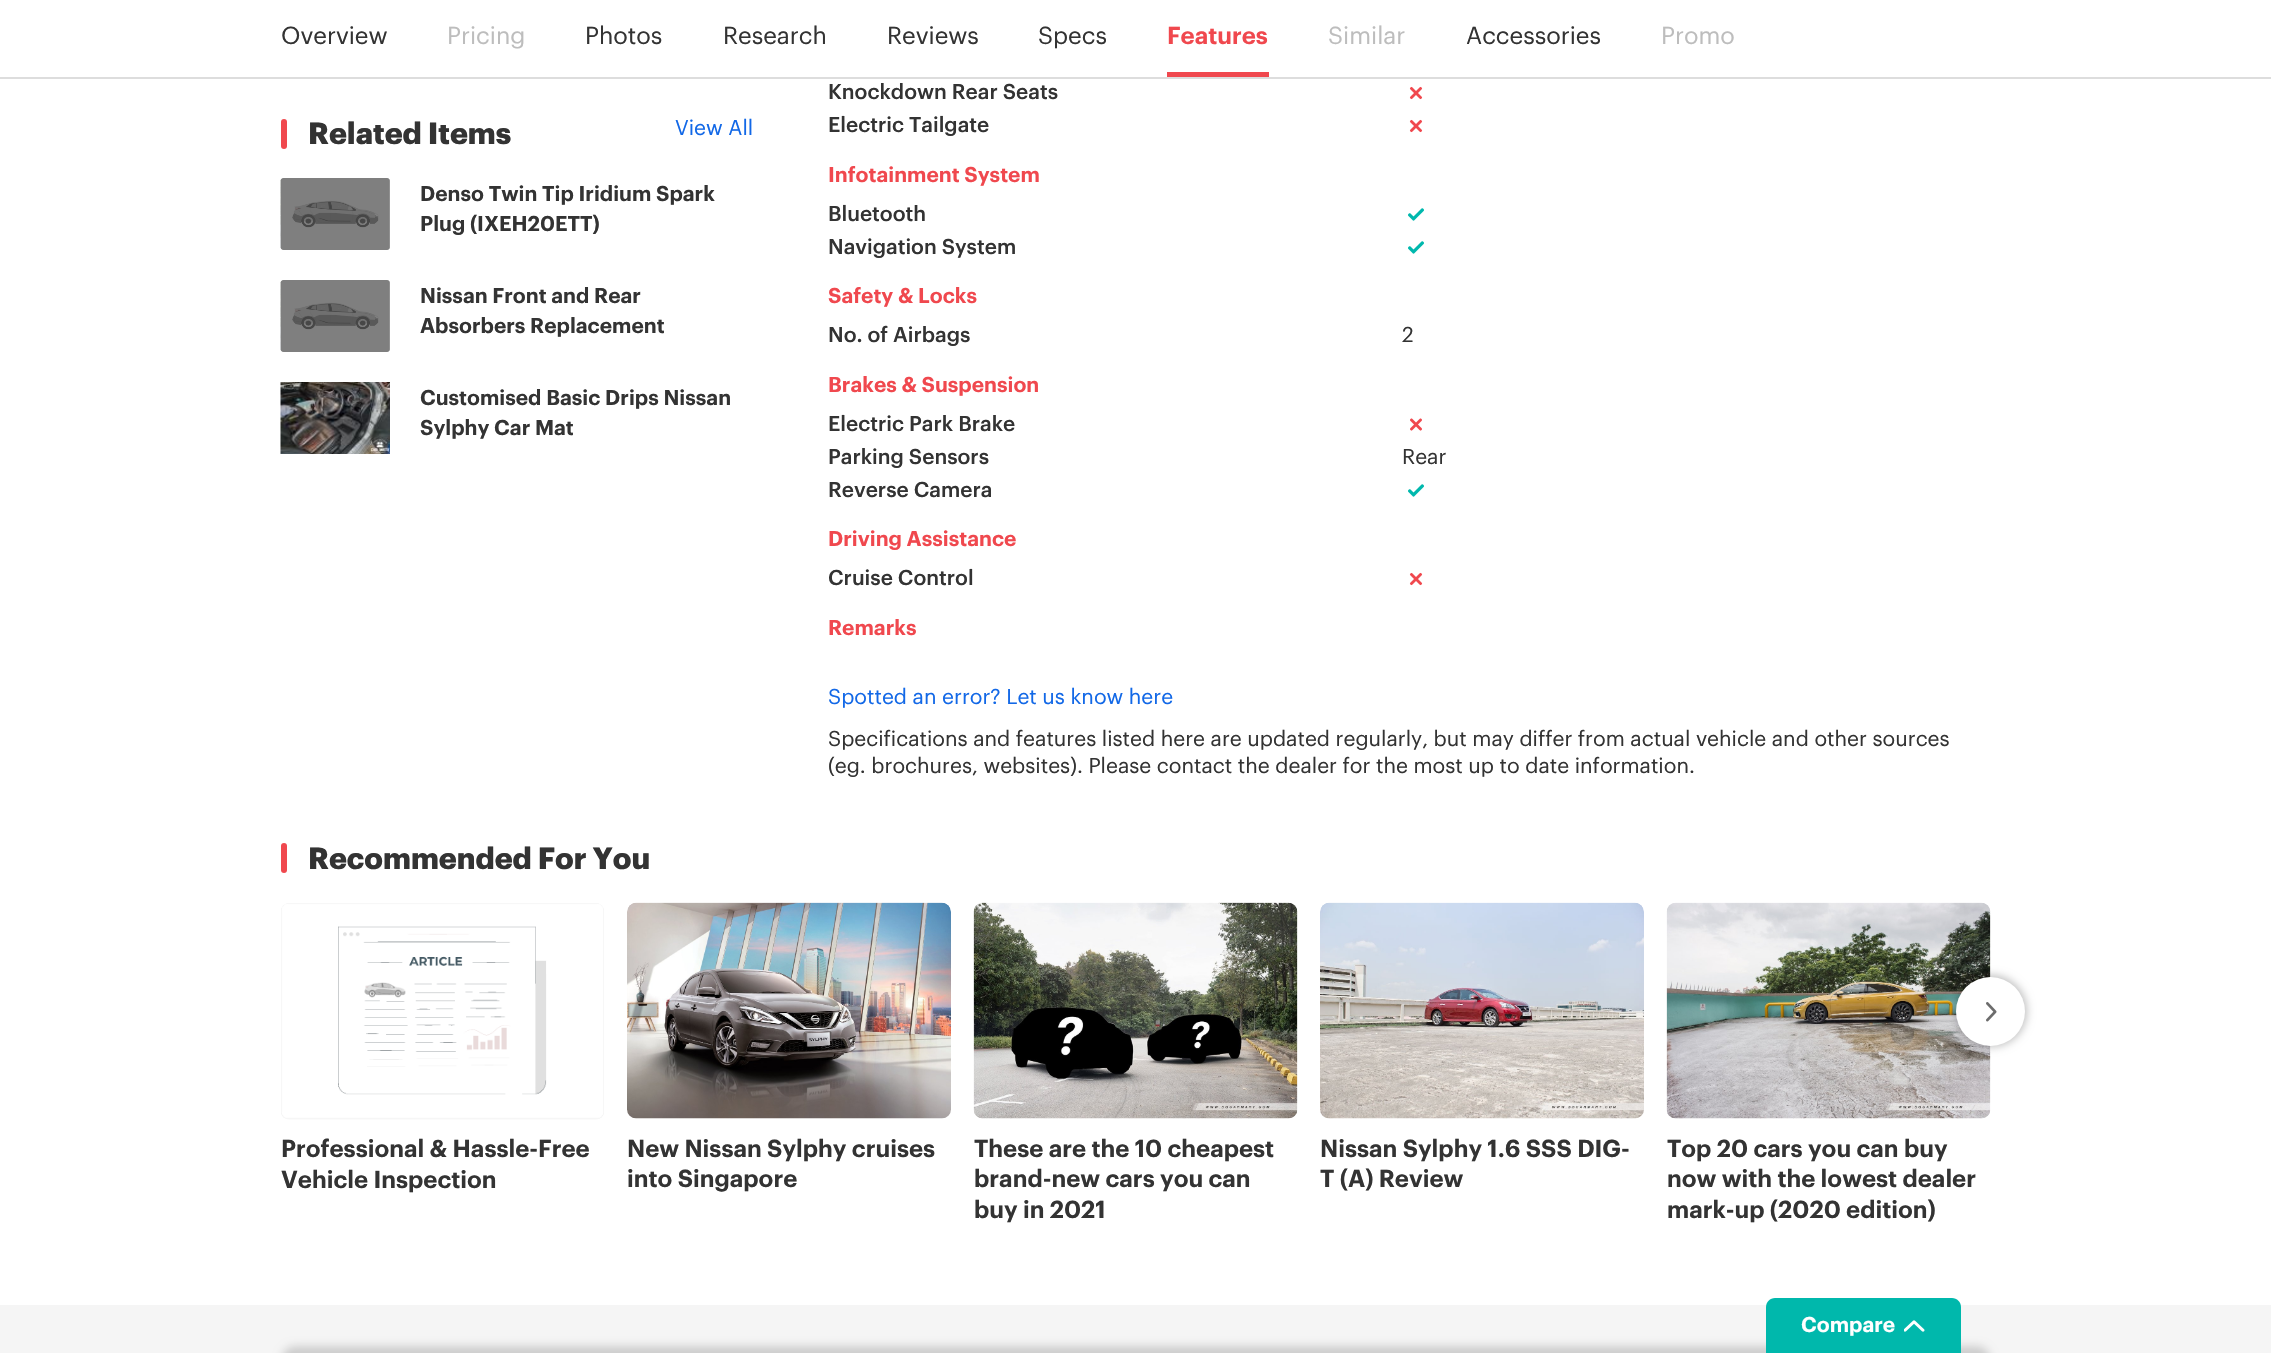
#include "include/core/SkBlurTypes.h"
#include "include/core/SkCanvas.h"
#include "include/core/SkData.h"
#include "include/core/SkFont.h"
#include "include/core/SkFontMgr.h"
#include "include/core/SkImage.h"
#include "include/core/SkMaskFilter.h"
#include "include/core/SkPaint.h"
#include "include/core/SkPathBuilder.h"
#include "include/core/SkTextBlob.h"
#include "include/effects/SkDashPathEffect.h"
#include "include/effects/SkGradientShader.h"
#include "include/utils/SkParsePath.h"

extern sk_sp<SkFontMgr> fontMgr;

static SkFont font(const char* family, int weight, float size, bool italic = false) {
    SkFontStyle style(weight, SkFontStyle::kNormal_Width,
        italic ? SkFontStyle::kItalic_Slant : SkFontStyle::kUpright_Slant);
    SkFont result(fontMgr->matchFamilyStyle(family, style), size);
    result.setSubpixel(true);
    return result;
}

static void drawLabel(SkCanvas* canvas, const char* s, float x, float y, const SkFont& font, SkColor color) {
    SkPaint ink(SkColor4f::FromColor(color));
    ink.setAntiAlias(true);
    canvas->drawString(s, x, y, font, ink);
}

static void fillRect(SkCanvas* canvas, float x, float y, float w, float h, SkColor color) {
    SkPaint ink(SkColor4f::FromColor(color));
    ink.setAntiAlias(true);
    canvas->drawRect(SkRect::MakeXYWH(x, y, w, h), ink);
}

static void fillRRect(SkCanvas* canvas, float x, float y, float w, float h, float radius, SkColor color) {
    SkPaint ink(SkColor4f::FromColor(color));
    ink.setAntiAlias(true);
    canvas->drawRoundRect(SkRect::MakeXYWH(x, y, w, h), radius, radius, ink);
}

static void drawPhoto(SkCanvas* canvas, const char* path, float x, float y, float w, float h) {
    auto image = SkImages::DeferredFromEncodedData(SkData::MakeFromFileName(path));
    canvas->drawImageRect(image, SkRect::MakeXYWH(x, y, w, h), SkSamplingOptions());
}

static SkPath parsePath(const char* data, bool evenOdd = false) {
    SkPath result = *SkParsePath::FromSVGString(data);
    if (evenOdd) result.setFillType(SkPathFillType::kEvenOdd);
    return result;
}

void draw(SkCanvas* canvas) {
    SkPaint paint;
    paint.setAntiAlias(true);
    canvas->clear(0xFFFFFFFF);
    fillRect(canvas, 0, 77, 2271, 2, 0xFFDDDDDD);
    SkFont font1 = font("Graphik", 400, 24);
    drawLabel(canvas, "Overview", 281, 44, font1, 0xFF333333);
    drawLabel(canvas, "Pricing", 447, 44, font1, 0xFFBDBDBD);
    drawLabel(canvas, "Photos", 585, 44, font1, 0xFF333333);
    drawLabel(canvas, "Research", 723, 44, font1, 0xFF333333);
    drawLabel(canvas, "Reviews", 887, 44, font1, 0xFF333333);
    drawLabel(canvas, "Specs", 1038, 44, font1, 0xFF333333);
    fillRect(canvas, 1167, 72, 102, 5, 0xFFF0484E);
    SkFont font2 = font("Graphik", 600, 24);
    drawLabel(canvas, "Features", 1167, 44, font2, 0xFFF0484E);
    drawLabel(canvas, "Similar", 1328, 44, font1, 0xFFBDBDBD);
    drawLabel(canvas, "Accessories", 1466, 44, font1, 0xFF333333);
    drawLabel(canvas, "Promo", 1661, 44, font1, 0xFFBDBDBD);
    fillRRect(canvas, 281, 119, 6, 30, 3, 0xFFF0484E);
    SkFont font3 = font("Graphik", 700, 30);
    drawLabel(canvas, "Related Items", 308, 144, font3, 0xFF333333);
    SkFont font4 = font("Graphik", 400, 21);
    drawLabel(canvas, "View All", 675, 135, font4, 0xFF1268E7);
    drawPhoto(canvas, "assets/img1.png", 280, 178, 110, 72);
    SkFont font5 = font("Graphik", 600, 21);
    drawLabel(canvas, "Denso Twin Tip Iridium Spark", 420, 201, font5, 0xFF333333);
    drawLabel(canvas, "Plug (IXEH20ETT)", 420, 231, font5, 0xFF333333);
    drawPhoto(canvas, "assets/img1.png", 280, 280, 110, 72);
    drawLabel(canvas, "Nissan Front and Rear", 420, 303, font5, 0xFF333333);
    drawLabel(canvas, "Absorbers Replacement", 420, 333, font5, 0xFF333333);
    drawPhoto(canvas, "assets/img2.png", 280, 382, 110, 72);
    drawLabel(canvas, "Customised Basic Drips Nissan", 420, 405, font5, 0xFF333333);
    drawLabel(canvas, "Sylphy Car Mat", 420, 435, font5, 0xFF333333);
    SkFont font6 = font("Graphik", 500, 21);
    drawLabel(canvas, "Knockdown Rear Seats", 828, 99, font6, 0xFF333333);
    drawPhoto(canvas, "assets/img3.png", 1409, 86, 14, 14);
    drawLabel(canvas, "Electric Tailgate", 828, 132, font6, 0xFF333333);
    drawPhoto(canvas, "assets/img3.png", 1409, 119, 14, 14);
    drawLabel(canvas, "Infotainment System", 828, 182, font5, 0xFFF0484E);
    drawLabel(canvas, "Bluetooth", 828, 221, font6, 0xFF333333);
    drawPhoto(canvas, "assets/img4.png", 1408, 208, 16, 13);
    drawLabel(canvas, "Navigation System", 828, 254, font6, 0xFF333333);
    drawPhoto(canvas, "assets/img4.png", 1408, 241, 16, 13);
    drawLabel(canvas, "Safety & Locks", 828, 303, font5, 0xFFF0484E);
    drawLabel(canvas, "No. of Airbags", 828, 342, font6, 0xFF333333);
    drawLabel(canvas, "2", 1402, 342, font4, 0xFF333333);
    drawLabel(canvas, "Brakes & Suspension", 828, 392, font5, 0xFFF0484E);
    drawLabel(canvas, "Electric Park Brake", 828, 431, font6, 0xFF333333);
    drawPhoto(canvas, "assets/img5.png", 1410, 418, 12, 13);
    drawLabel(canvas, "Parking Sensors", 828, 464, font6, 0xFF333333);
    drawLabel(canvas, "Rear", 1402, 464, font4, 0xFF333333);
    drawLabel(canvas, "Reverse Camera", 828, 497, font6, 0xFF333333);
    drawPhoto(canvas, "assets/img4.png", 1408, 484, 16, 13);
    drawLabel(canvas, "Driving Assistance", 828, 546, font5, 0xFFF0484E);
    drawLabel(canvas, "Cruise Control", 828, 585, font6, 0xFF333333);
    drawPhoto(canvas, "assets/img3.png", 1409, 572, 14, 14);
    drawLabel(canvas, "Remarks", 828, 635, font5, 0xFFF0484E);
    drawLabel(canvas, "Spotted an error? Let us know here", 828, 704, font4, 0xFF1268E7);
    drawLabel(canvas, "Specifications and features listed here are updated regularly, but may differ from actual vehicle and other sources", 828, 746, font4, 0xFF333333);
    drawLabel(canvas, "(eg. brochures, websites). Please contact the dealer for the most up to date information.", 828, 773, font4, 0xFF333333);
    fillRect(canvas, 0, 1305, 2271, 48, 0xFFF5F5F5);
    paint.setColor(0x29000000);
    paint.setMaskFilter(SkMaskFilter::MakeBlur(kNormal_SkBlurStyle, 4.5f));
    canvas->drawRoundRect(SkRect::MakeXYWH(281, 1346, 1710, 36), 15, 15, paint);
    paint.setMaskFilter(nullptr);
    paint.setColor(0xFF00B8AC);
    canvas->drawPath(parsePath("M1775 1298H1952C1957 1298 1961 1302 1961 1307V1353H1766V1307C1766 1302 1770 1298 1775 1298Z"), paint);
    drawLabel(canvas, "Compare", 1801, 1332, font5, 0xFFFFFFFF);
    drawPhoto(canvas, "assets/img6.png", 1904, 1320, 21, 12);
    fillRRect(canvas, 281, 843, 6, 30, 3, 0xFFF0484E);
    drawLabel(canvas, "Recommended For You", 308, 869, font3, 0xFF333333);
    drawPhoto(canvas, "assets/img12.png", 1666, 902, 325, 217);
    paint.setColor(0x40000000);
    paint.setMaskFilter(SkMaskFilter::MakeBlur(kNormal_SkBlurStyle, 4.5f));
    canvas->drawRoundRect(SkRect::MakeXYWH(1955, 975, 72, 72), 36, 36, paint);
    paint.setMaskFilter(nullptr);
    paint.setColor(0xFFFFFFFF);
    canvas->drawCircle(1990.5f, 1011.5f, 34.5f, paint);
    drawPhoto(canvas, "assets/img7.png", 1986, 1002, 11, 20);
    drawPhoto(canvas, "assets/img8.png", 281, 903, 323, 217);
    drawLabel(canvas, "Professional & Hassle-Free", 281, 1157, font2, 0xFF333333);
    drawLabel(canvas, "Vehicle Inspection", 281, 1188, font2, 0xFF333333);
    drawPhoto(canvas, "assets/img9.png", 627, 902, 324, 217);
    drawLabel(canvas, "New Nissan Sylphy cruises", 627, 1157, font2, 0xFF333333);
    drawLabel(canvas, "into Singapore", 627, 1187, font2, 0xFF333333);
    drawPhoto(canvas, "assets/img10.png", 973, 902, 325, 217);
    drawLabel(canvas, "These are the 10 cheapest", 974, 1157, font2, 0xFF333333);
    drawLabel(canvas, "brand-new cars you can", 974, 1187, font2, 0xFF333333);
    drawLabel(canvas, "buy in 2021", 974, 1218, font2, 0xFF333333);
    drawPhoto(canvas, "assets/img11.png", 1320, 902, 324, 217);
    drawLabel(canvas, "Nissan Sylphy 1.6 SSS DIG-", 1320, 1157, font2, 0xFF333333);
    drawLabel(canvas, "T (A) Review", 1320, 1187, font2, 0xFF333333);
    drawLabel(canvas, "Top 20 cars you can buy", 1667, 1157, font2, 0xFF333333);
    drawLabel(canvas, "now with the lowest dealer", 1667, 1187, font2, 0xFF333333);
    drawLabel(canvas, "mark-up (2020 edition)", 1667, 1218, font2, 0xFF333333);
}
